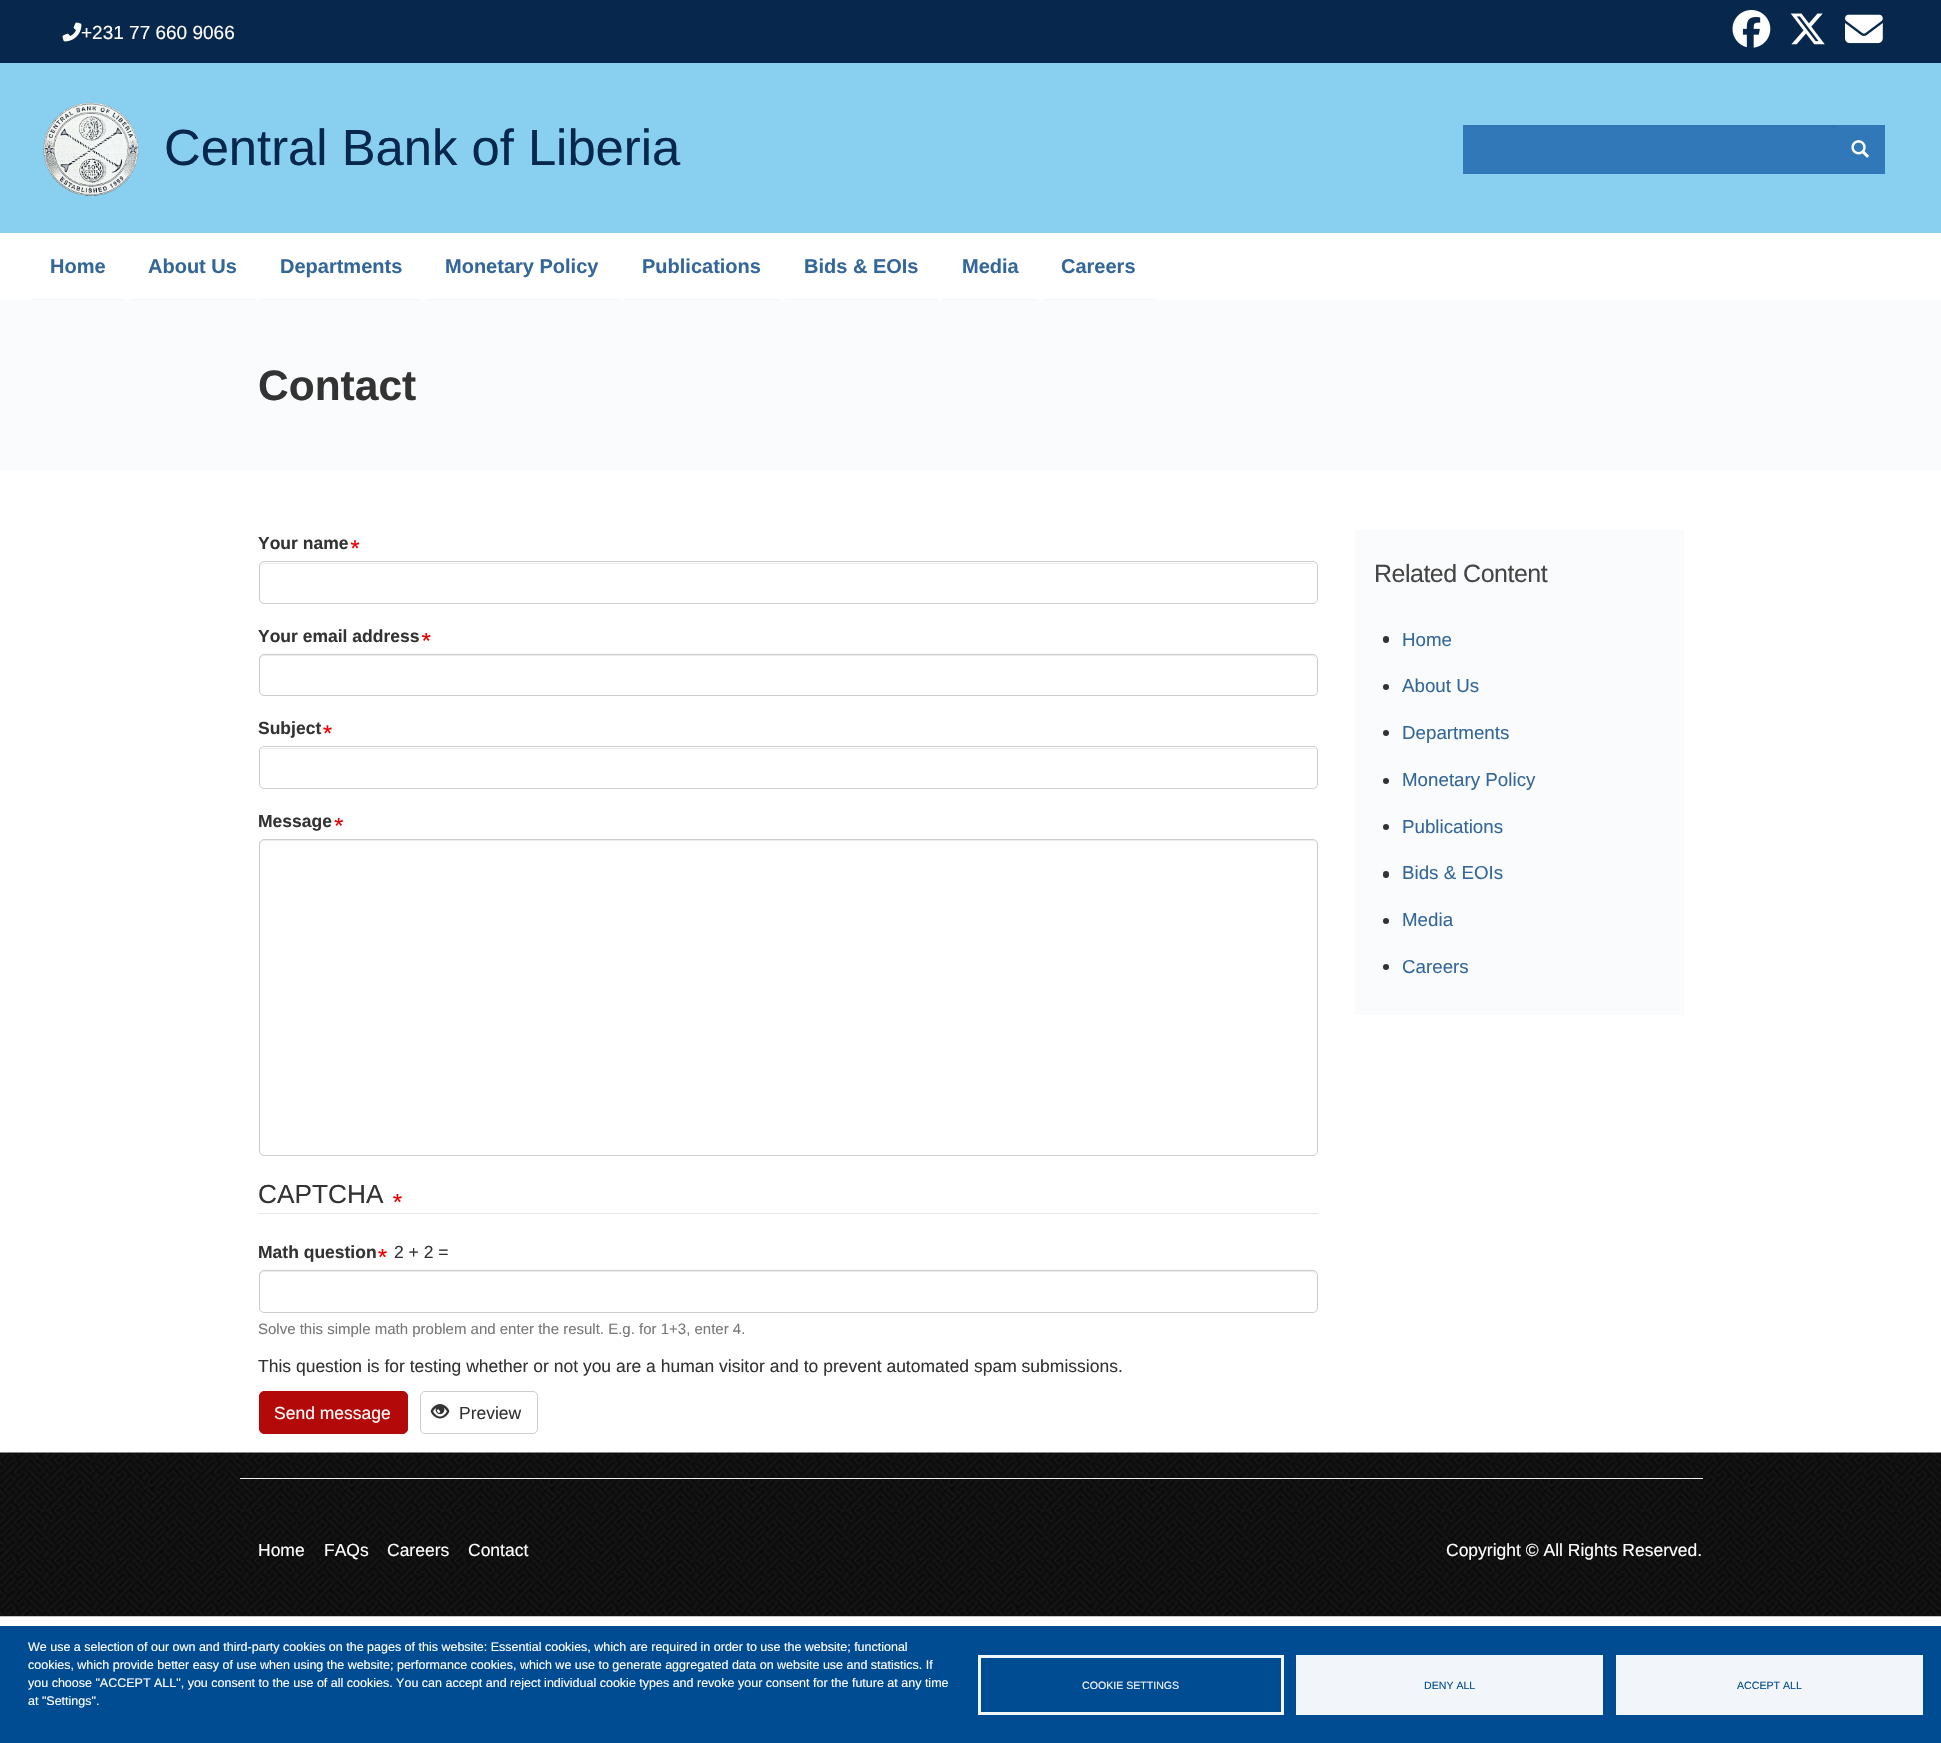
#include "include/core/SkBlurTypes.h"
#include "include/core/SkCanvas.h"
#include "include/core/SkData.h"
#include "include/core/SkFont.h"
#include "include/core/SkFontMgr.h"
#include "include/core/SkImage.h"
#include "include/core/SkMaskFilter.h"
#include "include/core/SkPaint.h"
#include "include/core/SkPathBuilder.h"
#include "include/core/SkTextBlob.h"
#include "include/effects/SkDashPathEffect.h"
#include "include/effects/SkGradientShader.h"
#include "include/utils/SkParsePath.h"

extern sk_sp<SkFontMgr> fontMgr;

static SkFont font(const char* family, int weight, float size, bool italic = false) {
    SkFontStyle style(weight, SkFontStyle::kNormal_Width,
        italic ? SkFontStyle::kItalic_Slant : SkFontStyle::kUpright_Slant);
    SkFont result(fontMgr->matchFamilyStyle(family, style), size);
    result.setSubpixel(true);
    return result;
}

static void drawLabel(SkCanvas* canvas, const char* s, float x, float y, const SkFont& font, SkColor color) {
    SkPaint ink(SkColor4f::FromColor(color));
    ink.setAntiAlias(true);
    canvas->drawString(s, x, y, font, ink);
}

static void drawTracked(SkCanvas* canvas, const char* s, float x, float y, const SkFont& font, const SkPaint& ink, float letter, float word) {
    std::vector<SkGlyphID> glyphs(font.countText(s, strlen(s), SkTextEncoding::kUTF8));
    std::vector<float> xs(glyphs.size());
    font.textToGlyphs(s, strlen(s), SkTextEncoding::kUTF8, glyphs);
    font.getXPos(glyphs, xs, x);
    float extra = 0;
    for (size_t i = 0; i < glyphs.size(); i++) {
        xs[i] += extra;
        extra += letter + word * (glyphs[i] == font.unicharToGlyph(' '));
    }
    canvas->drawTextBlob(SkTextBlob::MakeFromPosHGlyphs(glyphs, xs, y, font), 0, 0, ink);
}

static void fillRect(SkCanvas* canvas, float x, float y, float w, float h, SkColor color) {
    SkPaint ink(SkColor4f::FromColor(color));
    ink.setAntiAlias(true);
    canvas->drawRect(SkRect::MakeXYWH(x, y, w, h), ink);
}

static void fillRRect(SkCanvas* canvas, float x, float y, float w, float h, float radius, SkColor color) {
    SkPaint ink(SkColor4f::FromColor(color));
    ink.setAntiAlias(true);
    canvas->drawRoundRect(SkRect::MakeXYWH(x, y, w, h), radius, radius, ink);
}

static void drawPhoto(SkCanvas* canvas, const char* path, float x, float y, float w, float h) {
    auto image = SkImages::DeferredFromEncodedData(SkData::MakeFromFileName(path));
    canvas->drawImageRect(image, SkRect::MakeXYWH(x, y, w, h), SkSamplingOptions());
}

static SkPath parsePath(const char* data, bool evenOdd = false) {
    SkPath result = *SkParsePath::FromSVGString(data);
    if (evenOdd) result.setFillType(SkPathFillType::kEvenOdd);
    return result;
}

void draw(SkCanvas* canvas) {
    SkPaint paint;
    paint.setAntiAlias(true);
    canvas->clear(0xFFFFFFFF);
    fillRect(canvas, 0, 0, 1941, 63, 0xFF08274C);
    drawPhoto(canvas, "assets/img1.png", 62, 22, 20, 20);
    SkFont font1 = font("Liberation Sans", 400, 19);
    drawLabel(canvas, "+231 77 660 9066", 81, 39, font1, 0xFFFFFFFF);
    drawPhoto(canvas, "assets/img2.png", 1732, 10, 39, 38);
    drawPhoto(canvas, "assets/img3.png", 1790, 13, 35, 32);
    drawPhoto(canvas, "assets/img4.png", 1845, 14, 38, 30);
    fillRect(canvas, 0, 63, 1941, 170, 0xFF89CFF0);
    drawPhoto(canvas, "assets/img5.png", 43, 102, 96, 94);
    SkFont font2 = font("Liberation Sans", 400, 50.75f);
    drawLabel(canvas, "Central Bank of Liberia", 164, 165, font2, 0xFF08274C);
    fillRect(canvas, 1463, 125, 422, 49, 0xFF3078B8);
    fillRect(canvas, 1464, 126, 371, 1, 0xFF2C6FAA);
    drawPhoto(canvas, "assets/img6.png", 1851, 140, 18, 18);
    fillRect(canvas, 31, 299, 94, 1, 0xFFF4F4FC);
    SkFont font3 = font("Liberation Sans", 700, 20);
    drawLabel(canvas, "Home", 50, 273, font3, 0xFF336699);
    fillRect(canvas, 130, 299, 126, 1, 0xFFF4F4FC);
    drawLabel(canvas, "About Us", 148, 273, font3, 0xFF336699);
    fillRect(canvas, 261, 299, 160, 1, 0xFFF4F4FC);
    drawLabel(canvas, "Departments", 280, 273, font3, 0xFF336699);
    fillRect(canvas, 426, 299, 193, 1, 0xFFF4F4FC);
    drawLabel(canvas, "Monetary Policy", 445, 273, font3, 0xFF336699);
    fillRect(canvas, 624, 299, 156, 1, 0xFFF4F4FC);
    drawLabel(canvas, "Publications", 642, 273, font3, 0xFF336699);
    fillRect(canvas, 785, 299, 153, 1, 0xFFF4F4FC);
    drawLabel(canvas, "Bids & EOIs", 804, 273, font3, 0xFF336699);
    fillRect(canvas, 943, 299, 95, 1, 0xFFF4F4FC);
    drawLabel(canvas, "Media", 962, 273, font3, 0xFF336699);
    fillRect(canvas, 1043, 299, 112, 1, 0xFFF4F4FC);
    drawLabel(canvas, "Careers", 1061, 273, font3, 0xFF336699);
    fillRect(canvas, 0, 300, 1941, 170, 0xFFFAFBFC);
    SkFont font4 = font("Liberation Sans", 700, 42.5f);
    drawLabel(canvas, "Contact", 258, 400, font4, 0xFF333333);
    SkFont font5 = font("Liberation Sans", 700, 17.5f);
    drawLabel(canvas, "Your name", 258, 549, font5, 0xFF333333);
    drawPhoto(canvas, "assets/img7.png", 350, 540, 10, 9);
    paint.setColor(0xFFECECEC);
    canvas->drawPath(parsePath("M264 564H1312C1315 564 1316 565 1316 568C1316 565 1315 563 1312 563H264C261 563 260 565 260 568C260 565 262 564 264 564Z"), paint);
    paint.setStroke(true);
    paint.setStrokeWidth(1);
    paint.setColor(0xFFCCCCCC);
    canvas->drawRoundRect(SkRect::MakeXYWH(259.5f, 561.5f, 1058, 42), 4.5f, 4.5f, paint);
    drawLabel(canvas, "Your email address", 258, 642, font5, 0xFF333333);
    drawPhoto(canvas, "assets/img8.png", 421, 633, 10, 8);
    paint.setStroke(false);
    paint.setColor(0xFFECECEC);
    canvas->drawPath(parsePath("M264 656H1312C1315 656 1316 658 1316 660C1316 657 1315 655 1312 655H264C261 655 260 657 260 660C260 658 262 656 264 656Z"), paint);
    paint.setStroke(true);
    paint.setColor(0xFFCCCCCC);
    canvas->drawRoundRect(SkRect::MakeXYWH(259.5f, 654.5f, 1058, 41), 4.5f, 4.5f, paint);
    drawLabel(canvas, "Subject", 258, 734, font5, 0xFF333333);
    drawPhoto(canvas, "assets/img9.png", 323, 725, 9, 9);
    paint.setStroke(false);
    paint.setColor(0xFFECECEC);
    canvas->drawPath(parsePath("M264 749H1312C1314 749 1315 749 1316 750C1315 749 1314 748 1312 748H264C262 748 260 750 260 752C260 750 262 749 264 749Z"), paint);
    paint.setStroke(true);
    paint.setColor(0xFFCCCCCC);
    canvas->drawRoundRect(SkRect::MakeXYWH(259.5f, 746.5f, 1058, 42), 4.5f, 4.5f, paint);
    drawLabel(canvas, "Message", 258, 827, font5, 0xFF333333);
    drawPhoto(canvas, "assets/img10.png", 334, 818, 10, 8);
    paint.setStroke(false);
    paint.setColor(0xFFECECEC);
    canvas->drawPath(parsePath("M264 841H1312C1315 841 1316 843 1316 845C1316 842 1315 840 1312 840H264C261 840 260 842 260 845C260 843 262 841 264 841Z"), paint);
    paint.setStroke(true);
    paint.setColor(0xFFCCCCCC);
    canvas->drawRoundRect(SkRect::MakeXYWH(259.5f, 839.5f, 1058, 316), 4.5f, 4.5f, paint);
    fillRect(canvas, 259, 1213, 1059, 1, 0xFFE5E5E5);
    SkFont font6 = font("Liberation Sans", 400, 26.25f);
    drawLabel(canvas, "CAPTCHA", 258, 1203, font6, 0xFF333333);
    drawPhoto(canvas, "assets/img11.png", 393, 1194, 9, 9);
    drawLabel(canvas, "Math question", 258, 1258, font5, 0xFF333333);
    drawPhoto(canvas, "assets/img11.png", 378, 1249, 9, 9);
    SkFont font7 = font("Liberation Sans", 400, 17.5f);
    drawLabel(canvas, "2 + 2 =", 394, 1258, font7, 0xFF333333);
    paint.setStroke(false);
    paint.setColor(0xFFECECEC);
    canvas->drawPath(parsePath("M264 1272H1312C1315 1272 1316 1274 1316 1276C1316 1273 1315 1271 1312 1271H264C261 1271 260 1273 260 1276C260 1274 262 1272 264 1272Z"), paint);
    paint.setStroke(true);
    paint.setColor(0xFFCCCCCC);
    canvas->drawRoundRect(SkRect::MakeXYWH(259.5f, 1270.5f, 1058, 42), 4.5f, 4.5f, paint);
    SkFont font8 = font("Liberation Sans", 400, 15);
    drawLabel(canvas, "Solve this simple math problem and enter the result. E.g. for 1+3, enter 4.", 258, 1334, font8, 0xFF777777);
    drawLabel(canvas, "This question is for testing whether or not you are a human visitor and to prevent automated spam submissions.", 258, 1372, font7, 0xFF333333);
    paint.setStroke(false);
    paint.setColor(0xFFB40909);
    canvas->drawRoundRect(SkRect::MakeXYWH(259.5f, 1391.5f, 148, 42), 4.5f, 4.5f, paint);
    paint.setStroke(true);
    canvas->drawRoundRect(SkRect::MakeXYWH(259.5f, 1391.5f, 148, 42), 4.5f, 4.5f, paint);
    drawLabel(canvas, "Send message", 274, 1419, font7, 0xFFFFFFFF);
    paint.setColor(0xFFCCCCCC);
    canvas->drawRoundRect(SkRect::MakeXYWH(420.5f, 1391.5f, 117, 42), 4.5f, 4.5f, paint);
    drawPhoto(canvas, "assets/img12.png", 430, 1404, 20, 15);
    drawLabel(canvas, "Preview", 459, 1419, font7, 0xFF333333);
    fillRect(canvas, 1355, 530, 329, 485, 0xFFFAFBFC);
    SkFont font9 = font("Liberation Sans", 400, 25);
    paint.setStroke(false);
    paint.setColor(0xFF454545);
    drawTracked(canvas, "Related Content", 1374, 582, font9, paint, -0.5f, 0);
    fillRRect(canvas, 1383, 636, 6, 7, 3, 0xFF333333);
    SkFont font10 = font("Liberation Sans", 400, 18.75f);
    drawLabel(canvas, "Home", 1402, 646, font10, 0xFF336699);
    paint.setColor(0xFF333333);
    canvas->drawCircle(1386, 687, 3, paint);
    drawLabel(canvas, "About Us", 1402, 692, font10, 0xFF336699);
    canvas->drawCircle(1386, 733, 3, paint);
    drawLabel(canvas, "Departments", 1402, 739, font10, 0xFF336699);
    canvas->drawCircle(1386, 781, 3, paint);
    drawLabel(canvas, "Monetary Policy", 1402, 786, font10, 0xFF336699);
    canvas->drawCircle(1386, 827, 3, paint);
    drawLabel(canvas, "Publications", 1402, 833, font10, 0xFF336699);
    fillRRect(canvas, 1383, 871, 6, 7, 3, 0xFF333333);
    drawLabel(canvas, "Bids & EOIs", 1402, 879, font10, 0xFF336699);
    canvas->drawCircle(1386, 921, 3, paint);
    drawLabel(canvas, "Media", 1402, 926, font10, 0xFF336699);
    canvas->drawCircle(1386, 967, 3, paint);
    drawLabel(canvas, "Careers", 1402, 973, font10, 0xFF336699);
    drawPhoto(canvas, "assets/img13.png", 0, 1452, 1941, 165);
    fillRect(canvas, 240, 1478, 1463, 1, 0xFFEEEEEE);
    drawLabel(canvas, "Home", 258, 1556, font7, 0xFFFFFFFF);
    drawLabel(canvas, "FAQs", 324, 1556, font7, 0xFFFFFFFF);
    drawLabel(canvas, "Careers", 387, 1556, font7, 0xFFFFFFFF);
    drawLabel(canvas, "Contact", 468, 1556, font7, 0xFFFFFFFF);
    drawLabel(canvas, "Copyright © All Rights Reserved.", 1446, 1556, font7, 0xFFFFFFFF);
    fillRect(canvas, 0, 1626, 1941, 117, 0xFF004C93);
    SkFont font11 = font("Liberation Sans", 400, 12.5f);
    drawLabel(canvas, "We use a selection of our own and third-party cookies on the pages of this website: Essential cookies, which are required in order to use the website; functional", 28, 1651, font11, 0xFFFFFFFF);
    drawLabel(canvas, "cookies, which provide better easy of use when using the website; performance cookies, which we use to generate aggregated data on website use and statistics. If", 28, 1669, font11, 0xFFFFFFFF);
    drawLabel(canvas, "you choose \"ACCEPT ALL\", you consent to the use of all cookies. You can accept and reject individual cookie types and revoke your consent for the future at any time", 28, 1687, font11, 0xFFFFFFFF);
    drawLabel(canvas, "at \"Settings\".", 28, 1705, font11, 0xFFFFFFFF);
    paint.setStroke(true);
    paint.setStrokeWidth(3);
    paint.setColor(0xFFF2F6FA);
    canvas->drawRect(SkRect::MakeXYWH(979.5f, 1656.5f, 303, 57), paint);
    SkFont font12 = font("Liberation Sans", 400, 10.6f);
    drawLabel(canvas, "COOKIE SETTINGS", 1082, 1689, font12, 0xFFF2F6FA);
    fillRect(canvas, 1296, 1655, 307, 60, 0xFFF2F6FA);
    drawLabel(canvas, "DENY ALL", 1424, 1689, font12, 0xFF004C93);
    fillRect(canvas, 1616, 1655, 307, 60, 0xFFF2F6FA);
    drawLabel(canvas, "ACCEPT ALL", 1737, 1689, font12, 0xFF004C93);
}
